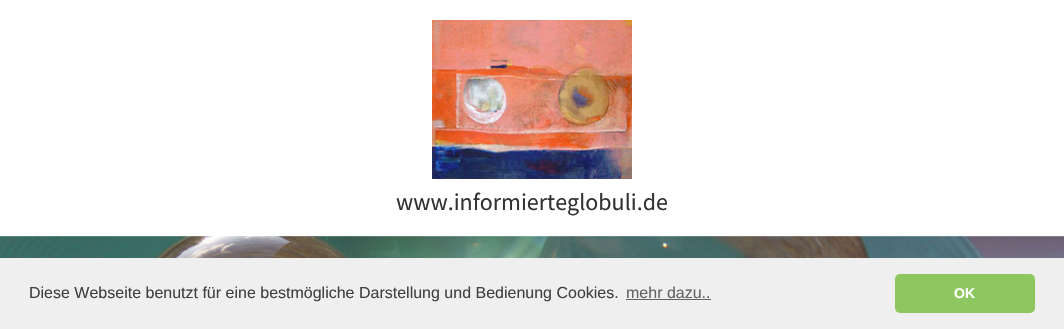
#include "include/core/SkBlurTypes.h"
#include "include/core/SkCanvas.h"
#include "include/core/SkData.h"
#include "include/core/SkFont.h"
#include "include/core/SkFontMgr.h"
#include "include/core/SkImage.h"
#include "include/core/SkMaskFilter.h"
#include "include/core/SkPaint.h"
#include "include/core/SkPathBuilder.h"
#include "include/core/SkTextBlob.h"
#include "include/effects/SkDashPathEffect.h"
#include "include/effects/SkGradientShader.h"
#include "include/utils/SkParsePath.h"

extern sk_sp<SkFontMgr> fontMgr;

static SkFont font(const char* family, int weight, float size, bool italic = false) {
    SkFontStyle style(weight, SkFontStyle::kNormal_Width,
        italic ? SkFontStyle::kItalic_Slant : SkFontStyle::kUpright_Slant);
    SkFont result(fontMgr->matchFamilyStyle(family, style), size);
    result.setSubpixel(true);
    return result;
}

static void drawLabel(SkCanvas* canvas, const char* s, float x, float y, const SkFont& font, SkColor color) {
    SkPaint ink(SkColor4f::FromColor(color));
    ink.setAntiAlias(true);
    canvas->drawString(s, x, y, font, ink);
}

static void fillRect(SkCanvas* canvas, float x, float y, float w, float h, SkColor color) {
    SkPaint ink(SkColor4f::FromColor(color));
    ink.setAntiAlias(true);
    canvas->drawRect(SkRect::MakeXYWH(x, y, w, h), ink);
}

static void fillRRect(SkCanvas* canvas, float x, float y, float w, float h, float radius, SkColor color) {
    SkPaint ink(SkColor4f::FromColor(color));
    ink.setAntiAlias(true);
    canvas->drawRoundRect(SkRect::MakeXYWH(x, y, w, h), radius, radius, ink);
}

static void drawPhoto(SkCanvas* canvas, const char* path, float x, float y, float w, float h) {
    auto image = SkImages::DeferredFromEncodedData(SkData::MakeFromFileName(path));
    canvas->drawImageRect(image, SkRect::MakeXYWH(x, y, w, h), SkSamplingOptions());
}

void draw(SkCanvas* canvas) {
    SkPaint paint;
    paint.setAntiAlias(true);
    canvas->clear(0xFFFFFFFF);
    drawPhoto(canvas, "assets/img1.png", 432, 20, 200, 159);
    SkFont font1 = font("Source Sans Pro", 400, 24);
    drawLabel(canvas, "www.informierteglobuli.de", 396, 210, font1, 0xFF333333);
    drawPhoto(canvas, "assets/img2.png", 0, 236, 1064, 22);
    fillRect(canvas, 0, 258, 1064, 71, 0xFFEFEFEF);
    SkFont font2 = font("Liberation Sans", 400, 16);
    drawLabel(canvas, "Diese Webseite benutzt für eine bestmögliche Darstellung und Bedienung Cookies.", 29, 298, font2, 0xFF404040);
    drawLabel(canvas, "mehr dazu..", 626, 298, font2, 0xFF636363);
    fillRect(canvas, 626, 299, 85, 1, 0xFF636363);
    fillRRect(canvas, 895, 274, 140, 39, 5, 0xFF8EC760);
    SkFont font3 = font("Liberation Sans", 700, 14);
    drawLabel(canvas, "OK", 954, 298, font3, 0xFFFFFFFF);
}
